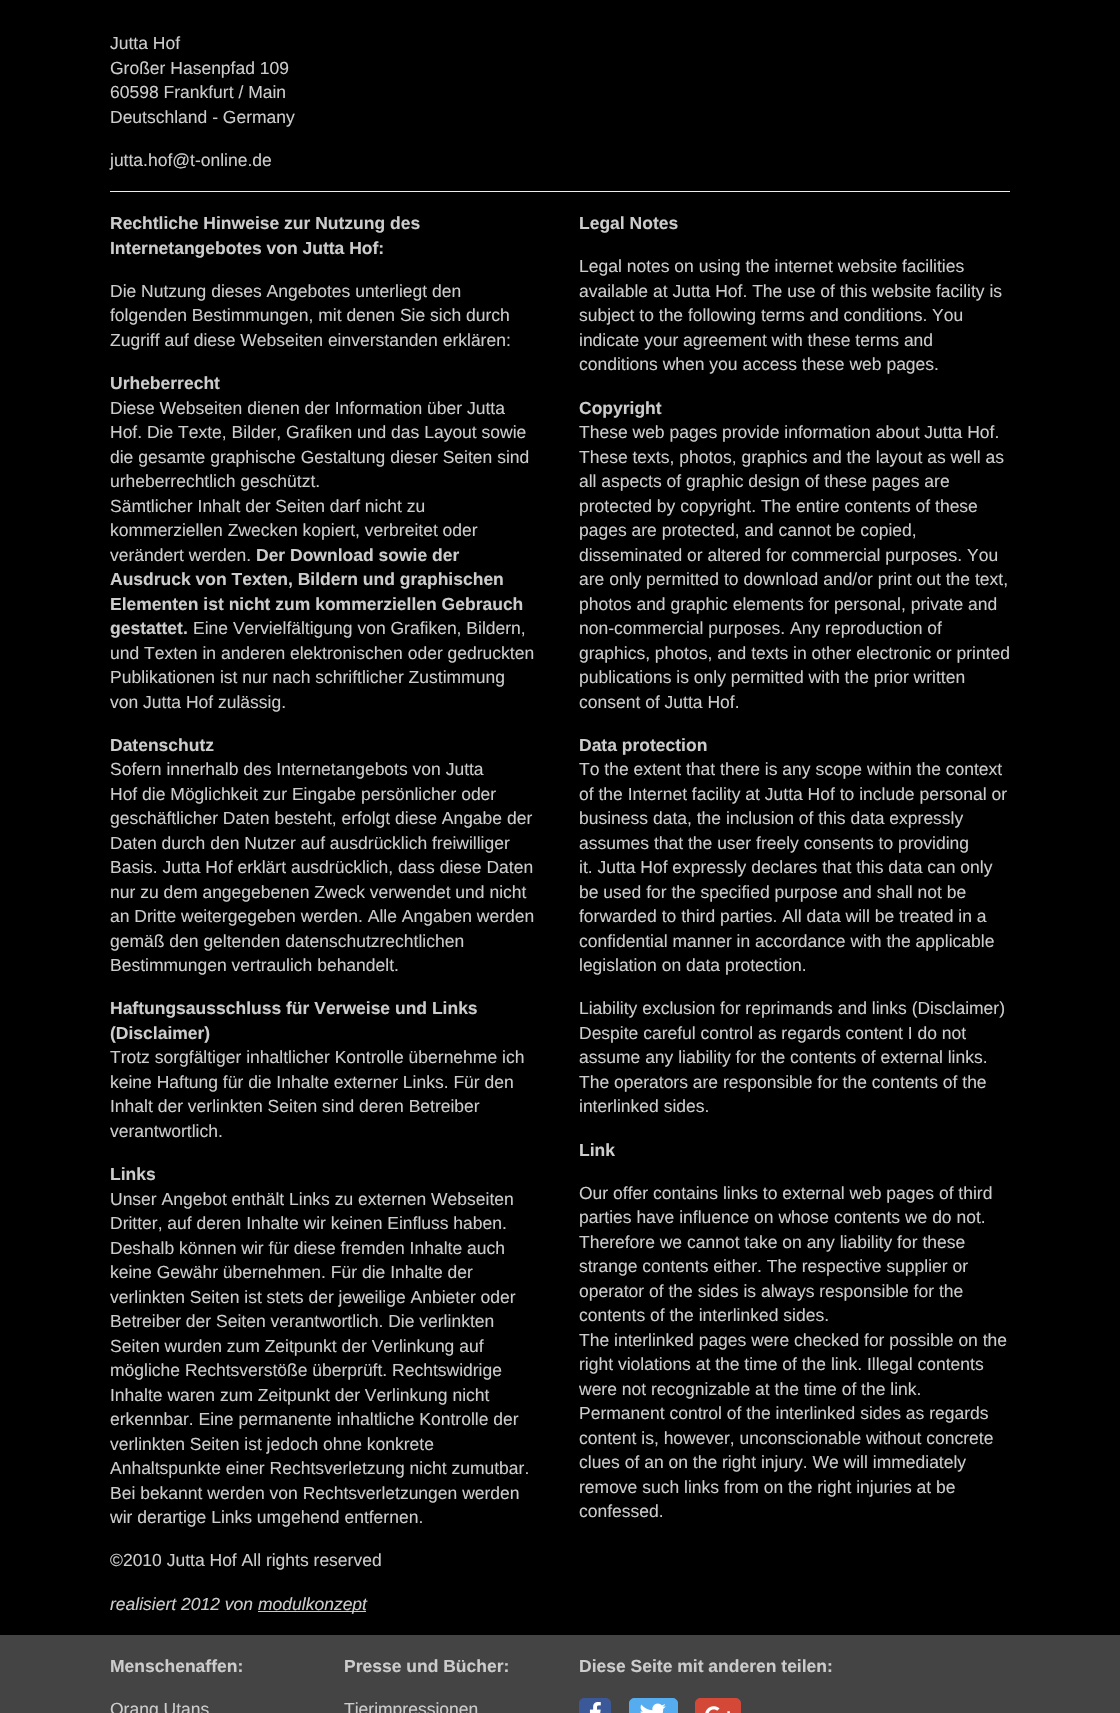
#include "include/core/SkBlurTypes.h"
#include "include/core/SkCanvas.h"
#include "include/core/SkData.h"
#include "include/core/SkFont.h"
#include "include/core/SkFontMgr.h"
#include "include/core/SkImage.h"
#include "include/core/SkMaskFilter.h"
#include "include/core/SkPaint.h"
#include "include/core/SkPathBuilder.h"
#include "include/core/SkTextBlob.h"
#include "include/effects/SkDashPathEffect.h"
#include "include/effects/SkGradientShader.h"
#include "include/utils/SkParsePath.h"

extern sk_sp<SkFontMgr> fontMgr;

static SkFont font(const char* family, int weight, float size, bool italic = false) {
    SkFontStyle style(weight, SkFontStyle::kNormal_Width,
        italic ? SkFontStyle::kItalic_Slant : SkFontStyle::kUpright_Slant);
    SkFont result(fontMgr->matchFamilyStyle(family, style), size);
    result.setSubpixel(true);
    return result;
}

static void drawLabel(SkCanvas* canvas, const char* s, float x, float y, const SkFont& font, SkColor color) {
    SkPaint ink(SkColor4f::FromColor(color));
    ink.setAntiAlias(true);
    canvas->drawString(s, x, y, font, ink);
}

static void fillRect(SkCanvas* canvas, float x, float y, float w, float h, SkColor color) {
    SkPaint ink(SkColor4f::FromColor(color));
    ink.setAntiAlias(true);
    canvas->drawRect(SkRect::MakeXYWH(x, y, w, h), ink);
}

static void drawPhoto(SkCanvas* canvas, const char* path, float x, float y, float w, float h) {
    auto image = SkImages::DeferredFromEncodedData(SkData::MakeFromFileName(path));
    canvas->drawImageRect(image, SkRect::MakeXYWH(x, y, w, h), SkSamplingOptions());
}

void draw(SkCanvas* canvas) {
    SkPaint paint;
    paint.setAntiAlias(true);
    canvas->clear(0xFF444444);
    fillRect(canvas, 0, 0, 1120, 1635, 0xFF000000);
    SkFont font1 = font("Liberation Sans", 400, 17.5f);
    drawLabel(canvas, "Jutta Hof", 110, 49, font1, 0xFFCCCCCC);
    drawLabel(canvas, "Großer Hasenpfad 109", 110, 74, font1, 0xFFCCCCCC);
    drawLabel(canvas, "60598 Frankfurt / Main", 110, 98, font1, 0xFFCCCCCC);
    drawLabel(canvas, "Deutschland - Germany", 110, 123, font1, 0xFFCCCCCC);
    drawLabel(canvas, "jutta.hof@t-online.de", 110, 166, font1, 0xFFCCCCCC);
    fillRect(canvas, 110, 191, 900, 1, 0xFFEEEEEE);
    SkFont font2 = font("Liberation Sans", 700, 17.5f);
    drawLabel(canvas, "Rechtliche Hinweise zur Nutzung des", 110, 229, font2, 0xFFCCCCCC);
    drawLabel(canvas, "Internetangebotes von Jutta Hof:", 110, 254, font2, 0xFFCCCCCC);
    drawLabel(canvas, "Die Nutzung dieses Angebotes unterliegt den", 110, 297, font1, 0xFFCCCCCC);
    drawLabel(canvas, "folgenden Bestimmungen, mit denen Sie sich durch", 110, 321, font1, 0xFFCCCCCC);
    drawLabel(canvas, "Zugriff auf diese Webseiten einverstanden erklären:", 110, 346, font1, 0xFFCCCCCC);
    drawLabel(canvas, "Urheberrecht", 110, 389, font2, 0xFFCCCCCC);
    drawLabel(canvas, "Diese Webseiten dienen der Information über Jutta", 110, 414, font1, 0xFFCCCCCC);
    drawLabel(canvas, "Hof. Die Texte, Bilder, Grafiken und das Layout sowie", 110, 438, font1, 0xFFCCCCCC);
    drawLabel(canvas, "die gesamte graphische Gestaltung dieser Seiten sind", 110, 463, font1, 0xFFCCCCCC);
    drawLabel(canvas, "urheberrechtlich geschützt.", 110, 487, font1, 0xFFCCCCCC);
    drawLabel(canvas, "Sämtlicher Inhalt der Seiten darf nicht zu", 110, 512, font1, 0xFFCCCCCC);
    drawLabel(canvas, "kommerziellen Zwecken kopiert, verbreitet oder", 110, 536, font1, 0xFFCCCCCC);
    drawLabel(canvas, "verändert werden.", 110, 561, font1, 0xFFCCCCCC);
    drawLabel(canvas, "Der Download sowie der", 256, 561, font2, 0xFFCCCCCC);
    drawLabel(canvas, "Ausdruck von Texten, Bildern und graphischen", 110, 585, font2, 0xFFCCCCCC);
    drawLabel(canvas, "Elementen ist nicht zum kommerziellen Gebrauch", 110, 610, font2, 0xFFCCCCCC);
    drawLabel(canvas, "gestattet.", 110, 634, font2, 0xFFCCCCCC);
    drawLabel(canvas, "Eine Vervielfältigung von Grafiken, Bildern,", 193, 634, font1, 0xFFCCCCCC);
    drawLabel(canvas, "und Texten in anderen elektronischen oder gedruckten", 110, 659, font1, 0xFFCCCCCC);
    drawLabel(canvas, "Publikationen ist nur nach schriftlicher Zustimmung", 110, 683, font1, 0xFFCCCCCC);
    drawLabel(canvas, "von Jutta Hof zulässig.", 110, 708, font1, 0xFFCCCCCC);
    drawLabel(canvas, "Datenschutz", 110, 751, font2, 0xFFCCCCCC);
    drawLabel(canvas, "Sofern innerhalb des Internetangebots von Jutta", 110, 775, font1, 0xFFCCCCCC);
    drawLabel(canvas, "Hof die Möglichkeit zur Eingabe persönlicher oder", 110, 800, font1, 0xFFCCCCCC);
    drawLabel(canvas, "geschäftlicher Daten besteht, erfolgt diese Angabe der", 110, 824, font1, 0xFFCCCCCC);
    drawLabel(canvas, "Daten durch den Nutzer auf ausdrücklich freiwilliger", 110, 849, font1, 0xFFCCCCCC);
    drawLabel(canvas, "Basis. Jutta Hof erklärt ausdrücklich, dass diese Daten", 110, 873, font1, 0xFFCCCCCC);
    drawLabel(canvas, "nur zu dem angegebenen Zweck verwendet und nicht", 110, 898, font1, 0xFFCCCCCC);
    drawLabel(canvas, "an Dritte weitergegeben werden. Alle Angaben werden", 110, 922, font1, 0xFFCCCCCC);
    drawLabel(canvas, "gemäß den geltenden datenschutzrechtlichen", 110, 947, font1, 0xFFCCCCCC);
    drawLabel(canvas, "Bestimmungen vertraulich behandelt.", 110, 971, font1, 0xFFCCCCCC);
    drawLabel(canvas, "Haftungsausschluss für Verweise und Links", 110, 1014, font2, 0xFFCCCCCC);
    drawLabel(canvas, "(Disclaimer)", 110, 1039, font2, 0xFFCCCCCC);
    drawLabel(canvas, "Trotz sorgfältiger inhaltlicher Kontrolle übernehme ich", 110, 1063, font1, 0xFFCCCCCC);
    drawLabel(canvas, "keine Haftung für die Inhalte externer Links. Für den", 110, 1088, font1, 0xFFCCCCCC);
    drawLabel(canvas, "Inhalt der verlinkten Seiten sind deren Betreiber", 110, 1112, font1, 0xFFCCCCCC);
    drawLabel(canvas, "verantwortlich.", 110, 1137, font1, 0xFFCCCCCC);
    drawLabel(canvas, "Links", 110, 1180, font2, 0xFFCCCCCC);
    drawLabel(canvas, "Unser Angebot enthält Links zu externen Webseiten", 110, 1205, font1, 0xFFCCCCCC);
    drawLabel(canvas, "Dritter, auf deren Inhalte wir keinen Einfluss haben.", 110, 1229, font1, 0xFFCCCCCC);
    drawLabel(canvas, "Deshalb können wir für diese fremden Inhalte auch", 110, 1254, font1, 0xFFCCCCCC);
    drawLabel(canvas, "keine Gewähr übernehmen. Für die Inhalte der", 110, 1278, font1, 0xFFCCCCCC);
    drawLabel(canvas, "verlinkten Seiten ist stets der jeweilige Anbieter oder", 110, 1303, font1, 0xFFCCCCCC);
    drawLabel(canvas, "Betreiber der Seiten verantwortlich. Die verlinkten", 110, 1327, font1, 0xFFCCCCCC);
    drawLabel(canvas, "Seiten wurden zum Zeitpunkt der Verlinkung auf", 110, 1352, font1, 0xFFCCCCCC);
    drawLabel(canvas, "mögliche Rechtsverstöße überprüft. Rechtswidrige", 110, 1376, font1, 0xFFCCCCCC);
    drawLabel(canvas, "Inhalte waren zum Zeitpunkt der Verlinkung nicht", 110, 1401, font1, 0xFFCCCCCC);
    drawLabel(canvas, "erkennbar. Eine permanente inhaltliche Kontrolle der", 110, 1425, font1, 0xFFCCCCCC);
    drawLabel(canvas, "verlinkten Seiten ist jedoch ohne konkrete", 110, 1450, font1, 0xFFCCCCCC);
    drawLabel(canvas, "Anhaltspunkte einer Rechtsverletzung nicht zumutbar.", 110, 1474, font1, 0xFFCCCCCC);
    drawLabel(canvas, "Bei bekannt werden von Rechtsverletzungen werden", 110, 1499, font1, 0xFFCCCCCC);
    drawLabel(canvas, "wir derartige Links umgehend entfernen.", 110, 1523, font1, 0xFFCCCCCC);
    drawLabel(canvas, "Legal Notes", 579, 229, font2, 0xFFCCCCCC);
    drawLabel(canvas, "Legal notes on using the internet website facilities", 579, 272, font1, 0xFFCCCCCC);
    drawLabel(canvas, "available at Jutta Hof. The use of this website facility is", 579, 297, font1, 0xFFCCCCCC);
    drawLabel(canvas, "subject to the following terms and conditions. You", 579, 321, font1, 0xFFCCCCCC);
    drawLabel(canvas, "indicate your agreement with these terms and", 579, 346, font1, 0xFFCCCCCC);
    drawLabel(canvas, "conditions when you access these web pages.", 579, 370, font1, 0xFFCCCCCC);
    drawLabel(canvas, "Copyright", 579, 414, font2, 0xFFCCCCCC);
    drawLabel(canvas, "These web pages provide information about Jutta Hof.", 579, 438, font1, 0xFFCCCCCC);
    drawLabel(canvas, "These texts, photos, graphics and the layout as well as", 579, 463, font1, 0xFFCCCCCC);
    drawLabel(canvas, "all aspects of graphic design of these pages are", 579, 487, font1, 0xFFCCCCCC);
    drawLabel(canvas, "protected by copyright. The entire contents of these", 579, 512, font1, 0xFFCCCCCC);
    drawLabel(canvas, "pages are protected, and cannot be copied,", 579, 536, font1, 0xFFCCCCCC);
    drawLabel(canvas, "disseminated or altered for commercial purposes. You", 579, 561, font1, 0xFFCCCCCC);
    drawLabel(canvas, "are only permitted to download and/or print out the text,", 579, 585, font1, 0xFFCCCCCC);
    drawLabel(canvas, "photos and graphic elements for personal, private and", 579, 610, font1, 0xFFCCCCCC);
    drawLabel(canvas, "non-commercial purposes. Any reproduction of", 579, 634, font1, 0xFFCCCCCC);
    drawLabel(canvas, "graphics, photos, and texts in other electronic or printed", 579, 659, font1, 0xFFCCCCCC);
    drawLabel(canvas, "publications is only permitted with the prior written", 579, 683, font1, 0xFFCCCCCC);
    drawLabel(canvas, "consent of Jutta Hof.", 579, 708, font1, 0xFFCCCCCC);
    drawLabel(canvas, "Data protection", 579, 751, font2, 0xFFCCCCCC);
    drawLabel(canvas, "To the extent that there is any scope within the context", 579, 775, font1, 0xFFCCCCCC);
    drawLabel(canvas, "of the Internet facility at Jutta Hof to include personal or", 579, 800, font1, 0xFFCCCCCC);
    drawLabel(canvas, "business data, the inclusion of this data expressly", 579, 824, font1, 0xFFCCCCCC);
    drawLabel(canvas, "assumes that the user freely consents to providing", 579, 849, font1, 0xFFCCCCCC);
    drawLabel(canvas, "it. Jutta Hof expressly declares that this data can only", 579, 873, font1, 0xFFCCCCCC);
    drawLabel(canvas, "be used for the specified purpose and shall not be", 579, 898, font1, 0xFFCCCCCC);
    drawLabel(canvas, "forwarded to third parties. All data will be treated in a", 579, 922, font1, 0xFFCCCCCC);
    drawLabel(canvas, "confidential manner in accordance with the applicable", 579, 947, font1, 0xFFCCCCCC);
    drawLabel(canvas, "legislation on data protection.", 579, 971, font1, 0xFFCCCCCC);
    drawLabel(canvas, "Liability exclusion for reprimands and links (Disclaimer)", 579, 1014, font1, 0xFFCCCCCC);
    drawLabel(canvas, "Despite careful control as regards content I do not", 579, 1039, font1, 0xFFCCCCCC);
    drawLabel(canvas, "assume any liability for the contents of external links.", 579, 1063, font1, 0xFFCCCCCC);
    drawLabel(canvas, "The operators are responsible for the contents of the", 579, 1088, font1, 0xFFCCCCCC);
    drawLabel(canvas, "interlinked sides.", 579, 1112, font1, 0xFFCCCCCC);
    drawLabel(canvas, "Link", 579, 1156, font2, 0xFFCCCCCC);
    drawLabel(canvas, "Our offer contains links to external web pages of third", 579, 1199, font1, 0xFFCCCCCC);
    drawLabel(canvas, "parties have influence on whose contents we do not.", 579, 1223, font1, 0xFFCCCCCC);
    drawLabel(canvas, "Therefore we cannot take on any liability for these", 579, 1248, font1, 0xFFCCCCCC);
    drawLabel(canvas, "strange contents either. The respective supplier or", 579, 1272, font1, 0xFFCCCCCC);
    drawLabel(canvas, "operator of the sides is always responsible for the", 579, 1297, font1, 0xFFCCCCCC);
    drawLabel(canvas, "contents of the interlinked sides.", 579, 1321, font1, 0xFFCCCCCC);
    drawLabel(canvas, "The interlinked pages were checked for possible on the", 579, 1346, font1, 0xFFCCCCCC);
    drawLabel(canvas, "right violations at the time of the link. Illegal contents", 579, 1370, font1, 0xFFCCCCCC);
    drawLabel(canvas, "were not recognizable at the time of the link.", 579, 1395, font1, 0xFFCCCCCC);
    drawLabel(canvas, "Permanent control of the interlinked sides as regards", 579, 1419, font1, 0xFFCCCCCC);
    drawLabel(canvas, "content is, however, unconscionable without concrete", 579, 1444, font1, 0xFFCCCCCC);
    drawLabel(canvas, "clues of an on the right injury. We will immediately", 579, 1468, font1, 0xFFCCCCCC);
    drawLabel(canvas, "remove such links from on the right injuries at be", 579, 1493, font1, 0xFFCCCCCC);
    drawLabel(canvas, "confessed.", 579, 1517, font1, 0xFFCCCCCC);
    drawLabel(canvas, "©2010 Jutta Hof All rights reserved", 110, 1566, font1, 0xFFCCCCCC);
    SkFont font3 = font("Liberation Sans", 400, 17.5f, true);
    drawLabel(canvas, "realisiert 2012 von", 110, 1610, font3, 0xFFCCCCCC);
    fillRect(canvas, 258, 1611, 108, 1, 0xFFCCCCCC);
    drawLabel(canvas, "modulkonzept", 258, 1610, font3, 0xFFCCCCCC);
    drawLabel(canvas, "Menschenaffen:", 110, 1672, font2, 0xFFCCCCCC);
    drawLabel(canvas, "Orang Utans", 110, 1715, font1, 0xFFCCCCCC);
    drawLabel(canvas, "Presse und Bücher:", 344, 1672, font2, 0xFFCCCCCC);
    drawLabel(canvas, "Tierimpressionen", 344, 1715, font1, 0xFFCCCCCC);
    drawLabel(canvas, "Diese Seite mit anderen teilen:", 579, 1672, font2, 0xFFCCCCCC);
    paint.setColor(0xFF3B5998);
    canvas->drawRoundRect(SkRect::MakeXYWH(579.5f, 1698.5f, 31, 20), 4.5f, 4.5f, paint);
    paint.setStroke(true);
    paint.setStrokeWidth(1);
    canvas->drawRoundRect(SkRect::MakeXYWH(579.5f, 1698.5f, 31, 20), 4.5f, 4.5f, paint);
    drawPhoto(canvas, "assets/img1.png", 589, 1702, 12, 11);
    paint.setStroke(false);
    paint.setColor(0xFF55ACEE);
    canvas->drawRoundRect(SkRect::MakeXYWH(629.5f, 1698.5f, 48, 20), 4.5f, 4.5f, paint);
    paint.setStroke(true);
    canvas->drawRoundRect(SkRect::MakeXYWH(629.5f, 1698.5f, 48, 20), 4.5f, 4.5f, paint);
    drawPhoto(canvas, "assets/img2.png", 640, 1703, 26, 10);
    paint.setStroke(false);
    paint.setColor(0xFFD34836);
    canvas->drawRoundRect(SkRect::MakeXYWH(695.5f, 1698.5f, 45, 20), 4.5f, 4.5f, paint);
    paint.setStroke(true);
    canvas->drawRoundRect(SkRect::MakeXYWH(695.5f, 1698.5f, 45, 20), 4.5f, 4.5f, paint);
    drawPhoto(canvas, "assets/img3.png", 705, 1706, 25, 7);
}
